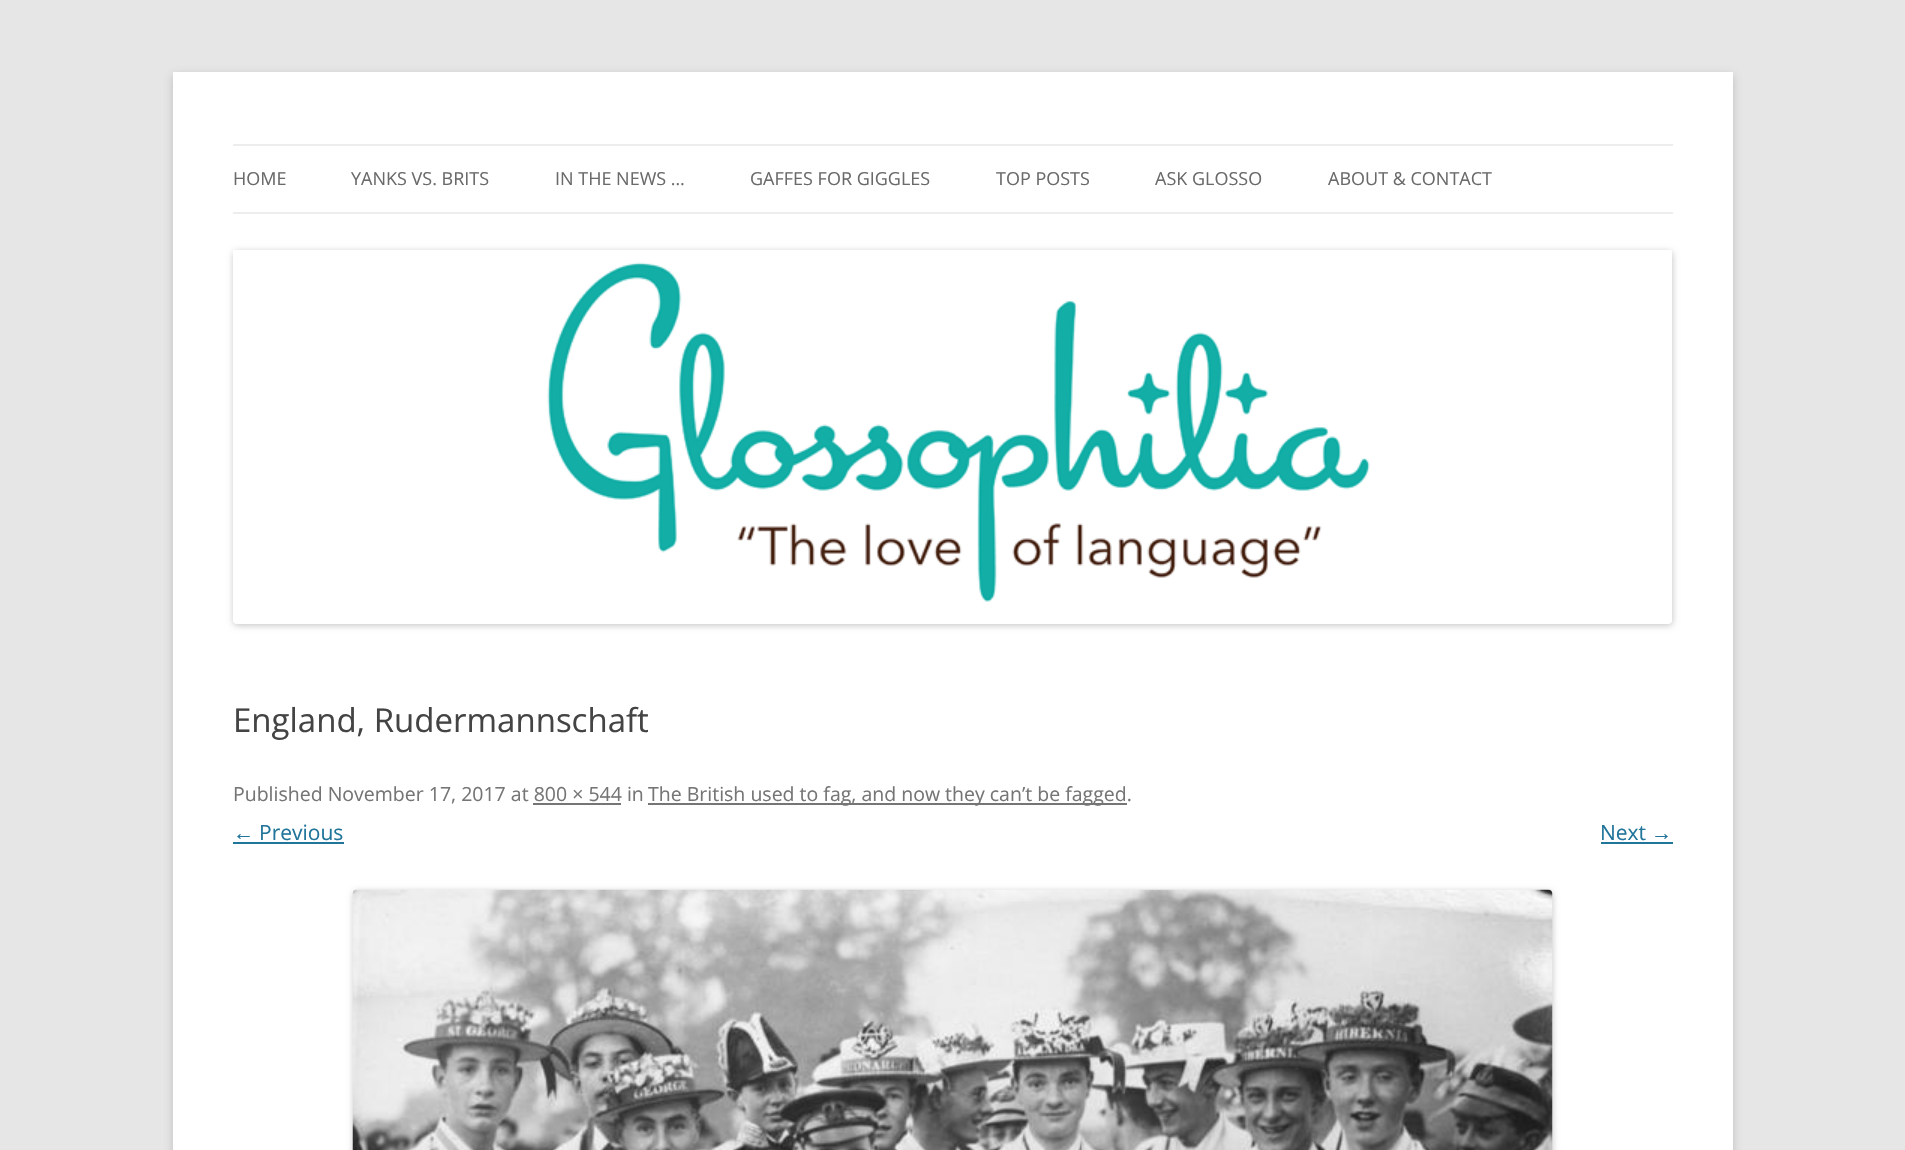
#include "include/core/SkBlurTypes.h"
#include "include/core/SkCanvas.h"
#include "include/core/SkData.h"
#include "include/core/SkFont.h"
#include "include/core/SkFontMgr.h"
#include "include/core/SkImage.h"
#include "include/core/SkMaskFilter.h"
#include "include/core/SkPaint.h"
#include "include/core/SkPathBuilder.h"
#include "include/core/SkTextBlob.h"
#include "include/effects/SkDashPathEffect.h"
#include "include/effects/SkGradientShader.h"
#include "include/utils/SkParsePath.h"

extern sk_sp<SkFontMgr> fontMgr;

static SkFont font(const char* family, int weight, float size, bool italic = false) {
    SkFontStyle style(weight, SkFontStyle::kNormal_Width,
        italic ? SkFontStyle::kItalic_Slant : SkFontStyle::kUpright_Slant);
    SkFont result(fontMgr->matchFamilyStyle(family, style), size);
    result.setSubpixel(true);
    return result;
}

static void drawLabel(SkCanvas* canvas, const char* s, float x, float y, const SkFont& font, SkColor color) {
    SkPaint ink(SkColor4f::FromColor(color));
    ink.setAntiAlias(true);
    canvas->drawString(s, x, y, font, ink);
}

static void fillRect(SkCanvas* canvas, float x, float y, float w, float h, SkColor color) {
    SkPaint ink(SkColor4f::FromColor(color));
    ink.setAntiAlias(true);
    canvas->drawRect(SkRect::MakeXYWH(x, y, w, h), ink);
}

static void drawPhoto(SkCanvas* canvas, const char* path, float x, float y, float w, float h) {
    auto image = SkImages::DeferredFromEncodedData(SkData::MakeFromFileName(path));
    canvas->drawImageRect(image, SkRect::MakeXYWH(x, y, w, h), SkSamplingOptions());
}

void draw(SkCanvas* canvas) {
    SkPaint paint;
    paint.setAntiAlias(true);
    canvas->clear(0xFFE6E6E6);
    paint.setColor(0x4D646464);
    paint.setMaskFilter(SkMaskFilter::MakeBlur(kNormal_SkBlurStyle, 4.5f));
    canvas->drawRect(SkRect::MakeXYWH(173, 75, 1560, 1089), paint);
    paint.setMaskFilter(nullptr);
    fillRect(canvas, 173, 72, 1560, 1078, 0xFFFFFFFF);
    fillRect(canvas, 233, 144, 1440, 2, 0xFFEDEDED);
    fillRect(canvas, 233, 212, 1440, 2, 0xFFEDEDED);
    SkFont font1 = font("Open Sans", 400, 18);
    drawLabel(canvas, "HOME", 233, 185, font1, 0xFF6A6A6A);
    drawLabel(canvas, "YANKS VS. BRITS", 351, 185, font1, 0xFF6A6A6A);
    drawLabel(canvas, "IN THE NEWS …", 555, 185, font1, 0xFF6A6A6A);
    drawLabel(canvas, "GAFFES FOR GIGGLES", 750, 185, font1, 0xFF6A6A6A);
    drawLabel(canvas, "TOP POSTS", 996, 185, font1, 0xFF6A6A6A);
    drawLabel(canvas, "ASK GLOSSO", 1155, 185, font1, 0xFF6A6A6A);
    drawLabel(canvas, "ABOUT & CONTACT", 1328, 185, font1, 0xFF6A6A6A);
    paint.setColor(0x33000000);
    paint.setMaskFilter(SkMaskFilter::MakeBlur(kNormal_SkBlurStyle, 3));
    canvas->drawRoundRect(SkRect::MakeXYWH(233, 251, 1440, 375), 5, 5, paint);
    paint.setMaskFilter(nullptr);
    drawPhoto(canvas, "assets/img1.png", 233, 250, 1439, 374);
    SkFont font2 = font("Open Sans", 400, 33);
    drawLabel(canvas, "England, Rudermannschaft", 233, 732, font2, 0xFF444444);
    SkFont font3 = font("Open Sans", 400, 19.5f);
    drawLabel(canvas, "Published November 17, 2017 at 800 × 544 in", 233, 801, font3, 0xFF757575);
    fillRect(canvas, 648, 803, 479, 2, 0xFF757575);
    drawLabel(canvas, "The British used to fag, and now they can’t be fagged.", 648, 801, font3, 0xFF757575);
    fillRect(canvas, 533, 803, 88, 2, 0xFF757575);
    SkFont font4 = font("Liberation Sans", 400, 21);
    drawLabel(canvas, "←", 233, 840, font4, 0xFF21759B);
    fillRect(canvas, 233, 842, 111, 2, 0xFF21759B);
    SkFont font5 = font("Open Sans", 400, 21);
    drawLabel(canvas, "Previous", 259, 840, font5, 0xFF21759B);
    drawLabel(canvas, "Next", 1600, 840, font5, 0xFF21759B);
    drawLabel(canvas, "→", 1651, 840, font4, 0xFF21759B);
    fillRect(canvas, 1601, 842, 72, 2, 0xFF21759B);
    paint.setMaskFilter(SkMaskFilter::MakeBlur(kNormal_SkBlurStyle, 3));
    canvas->drawRoundRect(SkRect::MakeXYWH(353, 891, 1200, 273), 5, 5, paint);
    paint.setMaskFilter(nullptr);
    drawPhoto(canvas, "assets/img2.png", 352, 889, 1201, 261);
}
